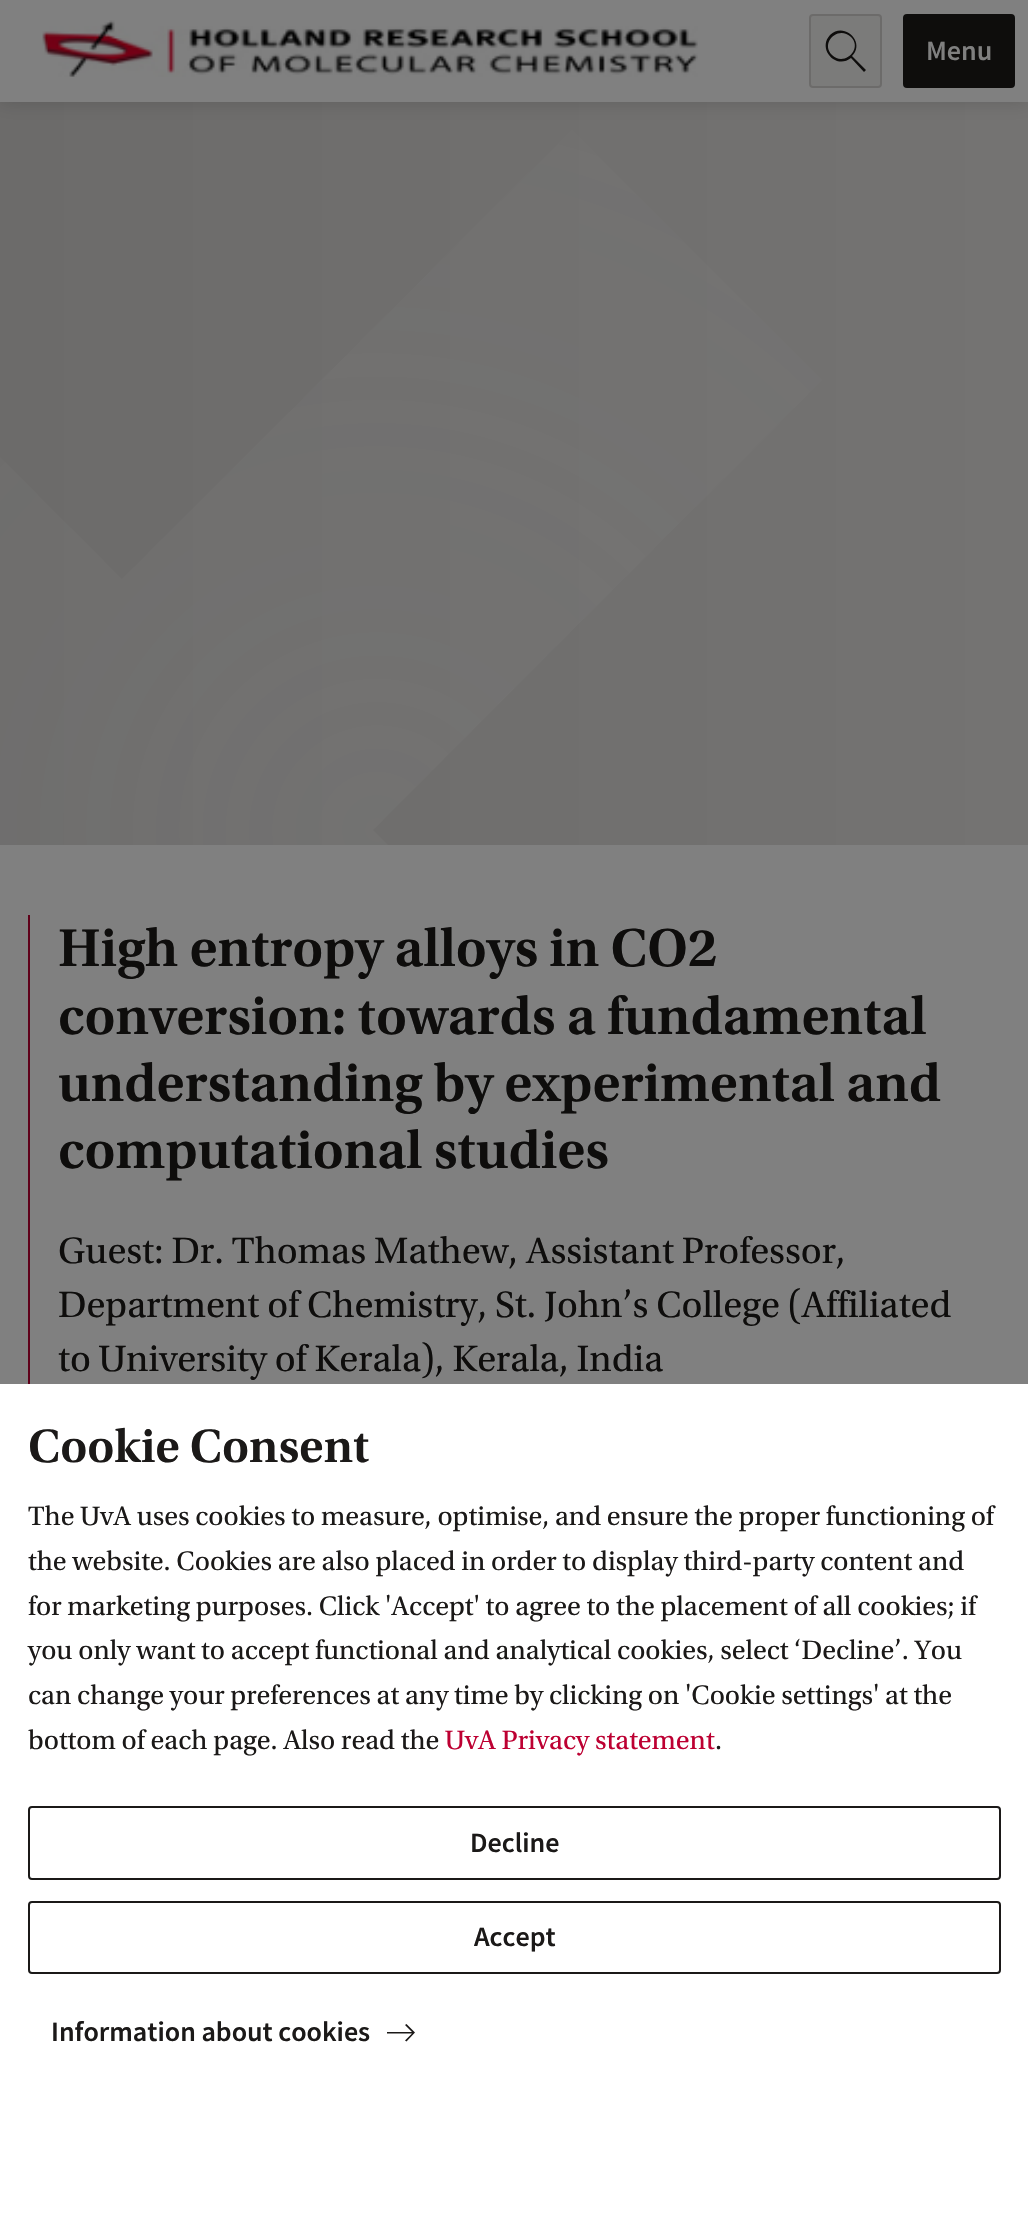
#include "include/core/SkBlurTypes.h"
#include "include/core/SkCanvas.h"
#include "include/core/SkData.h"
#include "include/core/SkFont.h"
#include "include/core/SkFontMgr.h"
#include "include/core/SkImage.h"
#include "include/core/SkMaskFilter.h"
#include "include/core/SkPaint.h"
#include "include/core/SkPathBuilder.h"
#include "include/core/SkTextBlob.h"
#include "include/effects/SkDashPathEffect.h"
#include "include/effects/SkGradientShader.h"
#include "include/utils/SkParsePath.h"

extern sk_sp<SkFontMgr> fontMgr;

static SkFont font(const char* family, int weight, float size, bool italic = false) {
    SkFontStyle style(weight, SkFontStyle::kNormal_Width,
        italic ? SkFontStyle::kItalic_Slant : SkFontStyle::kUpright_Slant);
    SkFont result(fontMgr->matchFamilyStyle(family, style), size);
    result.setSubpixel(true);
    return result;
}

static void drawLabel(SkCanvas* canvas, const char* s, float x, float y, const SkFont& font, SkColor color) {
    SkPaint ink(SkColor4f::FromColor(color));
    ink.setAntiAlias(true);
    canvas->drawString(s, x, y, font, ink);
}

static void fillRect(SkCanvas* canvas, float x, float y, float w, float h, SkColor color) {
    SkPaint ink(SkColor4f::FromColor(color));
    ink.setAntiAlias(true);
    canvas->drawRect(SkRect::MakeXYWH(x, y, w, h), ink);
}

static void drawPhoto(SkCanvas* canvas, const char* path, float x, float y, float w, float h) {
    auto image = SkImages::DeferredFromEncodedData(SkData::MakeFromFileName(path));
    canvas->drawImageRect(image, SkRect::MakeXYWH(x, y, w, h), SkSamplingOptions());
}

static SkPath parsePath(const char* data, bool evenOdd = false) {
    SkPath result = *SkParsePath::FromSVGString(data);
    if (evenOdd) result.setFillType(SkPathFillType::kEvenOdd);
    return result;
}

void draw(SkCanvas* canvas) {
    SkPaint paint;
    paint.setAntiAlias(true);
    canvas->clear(0xFF808080);
    {
        const SkColor colors[] = {0xFF6C6B6A, 0xFF747372};
        const float stops[] = {0, 1};
        const SkPoint ends[] = {{0, 398}, {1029, 398}};
        paint.setShader(SkGradientShader::MakeLinear(ends, colors, stops, 2, SkTileMode::kClamp));
        paint.setAlpha(255);
    }
    canvas->drawRect(SkRect::MakeXYWH(0, 102, 1028, 743), paint);
    paint.setShader(nullptr);
    paint.setColor(0x26000000);
    paint.setMaskFilter(SkMaskFilter::MakeBlur(kNormal_SkBlurStyle, 9));
    canvas->drawRect(SkRect::MakeXYWH(0, 0, 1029, 102), paint);
    paint.setMaskFilter(nullptr);
    fillRect(canvas, 0, 0, 1028, 102, 0xFF808080);
    drawPhoto(canvas, "assets/img1.png", 42, 20, 656, 57);
    paint.setColor(0xFF7B7B7A);
    canvas->drawRoundRect(SkRect::MakeXYWH(810, 15, 71, 72), 3, 3, paint);
    paint.setStroke(true);
    paint.setStrokeWidth(2);
    paint.setColor(0xFF6C6B6A);
    canvas->drawRoundRect(SkRect::MakeXYWH(810, 15, 71, 72), 3, 3, paint);
    paint.setStroke(false);
    paint.setColor(0xFF0E0D0C);
    canvas->drawPath(parsePath("M851 58C836 70 817 49 830 35C844 21 866 42 852 56L866 70L864 72ZM832 55C844 67 863 49 851 37C838 25 820 43 832 55Z"), paint);
    canvas->drawRoundRect(SkRect::MakeXYWH(904, 15, 110, 72), 3, 3, paint);
    paint.setStroke(true);
    canvas->drawRoundRect(SkRect::MakeXYWH(904, 15, 110, 72), 3, 3, paint);
    SkFont font1 = font("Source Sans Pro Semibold", 600, 28);
    drawLabel(canvas, "Menu", 926, 60, font1, 0xFF808080);
    canvas->save();
    canvas->clipRect(SkRect::MakeXYWH(0, 130, 823, 715));
    paint.setStroke(false);
    {
        const SkColor colors[] = {0x33808080, 0x00808080};
        const float stops[] = {0, 1};
        paint.setShader(SkGradientShader::MakeRadial({377, 830}, 1186, colors, stops, 2, SkTileMode::kClamp));
        paint.setAlpha(255);
    }
    canvas->drawPath(parsePath("M822 1279L572 1530L122 1080L-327 1530L-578 1279L-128 830L-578 380L-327 130L122 579L572 130L822 380L373 830Z", true), paint);
    canvas->restore();
    fillRect(canvas, 28, 915, 2, 473, 0xFF5F0019);
    SkFont font2 = font("Utopia", 600, 56);
    drawLabel(canvas, "High entropy alloys in CO2", 58, 966, font2, 0xFF0E0D0C);
    drawLabel(canvas, "conversion: towards a fundamental", 58, 1034, font2, 0xFF0E0D0C);
    drawLabel(canvas, "understanding by experimental and", 58, 1101, font2, 0xFF0E0D0C);
    drawLabel(canvas, "computational studies", 58, 1168, font2, 0xFF0E0D0C);
    SkFont font3 = font("Utopia", 400, 38.5f);
    drawLabel(canvas, "Guest: Dr. Thomas Mathew, Assistant Professor,", 58, 1263, font3, 0xFF0E0D0C);
    drawLabel(canvas, "Department of Chemistry, St. John’s College (Affiliated", 58, 1317, font3, 0xFF0E0D0C);
    drawLabel(canvas, "to University of Kerala), Kerala, India", 58, 1371, font3, 0xFF0E0D0C);
    fillRect(canvas, 0, 1384, 1028, 852, 0xFFFFFFFF);
    SkFont font4 = font("Utopia", 600, 49);
    drawLabel(canvas, "Cookie Consent", 28, 1462, font4, 0xFF1B1918);
    SkFont font5 = font("Utopia", 400, 28);
    drawLabel(canvas, "The UvA uses cookies to measure, optimise, and ensure the proper functioning of", 28, 1525, font5, 0xFF1B1918);
    drawLabel(canvas, "the website. Cookies are also placed in order to display third-party content and", 28, 1570, font5, 0xFF1B1918);
    drawLabel(canvas, "for marketing purposes. Click 'Accept' to agree to the placement of all cookies; if", 28, 1615, font5, 0xFF1B1918);
    drawLabel(canvas, "you only want to accept functional and analytical cookies, select ‘Decline’. You", 28, 1659, font5, 0xFF1B1918);
    drawLabel(canvas, "can change your preferences at any time by clicking on 'Cookie settings' at the", 28, 1704, font5, 0xFF1B1918);
    drawLabel(canvas, "bottom of each page. Also read the", 28, 1749, font5, 0xFF1B1918);
    drawLabel(canvas, "UvA Privacy statement", 445, 1749, font5, 0xFFBD0032);
    drawLabel(canvas, ".", 715, 1749, font5, 0xFF1B1918);
    paint.setStroke(true);
    paint.setShader(nullptr);
    paint.setColor(0xFF1B1918);
    canvas->drawRoundRect(SkRect::MakeXYWH(29, 1807, 971, 72), 3, 3, paint);
    drawLabel(canvas, "Decline", 470, 1852, font1, 0xFF1B1918);
    canvas->drawRoundRect(SkRect::MakeXYWH(29, 1902, 971, 71), 3, 3, paint);
    drawLabel(canvas, "Accept", 474, 1946, font1, 0xFF1B1918);
    drawLabel(canvas, "Information about cookies", 51, 2041, font1, 0xFF1B1918);
    paint.setStroke(false);
    canvas->drawPath(parsePath("M412 2033.5H387V2032H412L405 2025L406.5 2024L415 2032.5L406.5 2041.5L405 2040.5Z"), paint);
}
